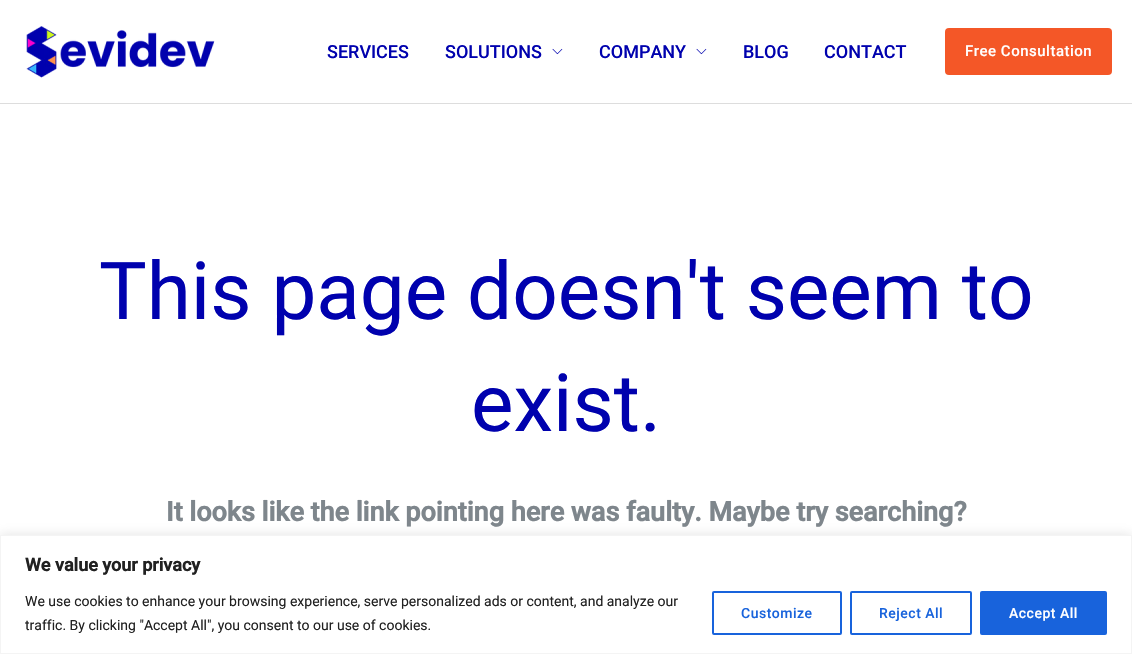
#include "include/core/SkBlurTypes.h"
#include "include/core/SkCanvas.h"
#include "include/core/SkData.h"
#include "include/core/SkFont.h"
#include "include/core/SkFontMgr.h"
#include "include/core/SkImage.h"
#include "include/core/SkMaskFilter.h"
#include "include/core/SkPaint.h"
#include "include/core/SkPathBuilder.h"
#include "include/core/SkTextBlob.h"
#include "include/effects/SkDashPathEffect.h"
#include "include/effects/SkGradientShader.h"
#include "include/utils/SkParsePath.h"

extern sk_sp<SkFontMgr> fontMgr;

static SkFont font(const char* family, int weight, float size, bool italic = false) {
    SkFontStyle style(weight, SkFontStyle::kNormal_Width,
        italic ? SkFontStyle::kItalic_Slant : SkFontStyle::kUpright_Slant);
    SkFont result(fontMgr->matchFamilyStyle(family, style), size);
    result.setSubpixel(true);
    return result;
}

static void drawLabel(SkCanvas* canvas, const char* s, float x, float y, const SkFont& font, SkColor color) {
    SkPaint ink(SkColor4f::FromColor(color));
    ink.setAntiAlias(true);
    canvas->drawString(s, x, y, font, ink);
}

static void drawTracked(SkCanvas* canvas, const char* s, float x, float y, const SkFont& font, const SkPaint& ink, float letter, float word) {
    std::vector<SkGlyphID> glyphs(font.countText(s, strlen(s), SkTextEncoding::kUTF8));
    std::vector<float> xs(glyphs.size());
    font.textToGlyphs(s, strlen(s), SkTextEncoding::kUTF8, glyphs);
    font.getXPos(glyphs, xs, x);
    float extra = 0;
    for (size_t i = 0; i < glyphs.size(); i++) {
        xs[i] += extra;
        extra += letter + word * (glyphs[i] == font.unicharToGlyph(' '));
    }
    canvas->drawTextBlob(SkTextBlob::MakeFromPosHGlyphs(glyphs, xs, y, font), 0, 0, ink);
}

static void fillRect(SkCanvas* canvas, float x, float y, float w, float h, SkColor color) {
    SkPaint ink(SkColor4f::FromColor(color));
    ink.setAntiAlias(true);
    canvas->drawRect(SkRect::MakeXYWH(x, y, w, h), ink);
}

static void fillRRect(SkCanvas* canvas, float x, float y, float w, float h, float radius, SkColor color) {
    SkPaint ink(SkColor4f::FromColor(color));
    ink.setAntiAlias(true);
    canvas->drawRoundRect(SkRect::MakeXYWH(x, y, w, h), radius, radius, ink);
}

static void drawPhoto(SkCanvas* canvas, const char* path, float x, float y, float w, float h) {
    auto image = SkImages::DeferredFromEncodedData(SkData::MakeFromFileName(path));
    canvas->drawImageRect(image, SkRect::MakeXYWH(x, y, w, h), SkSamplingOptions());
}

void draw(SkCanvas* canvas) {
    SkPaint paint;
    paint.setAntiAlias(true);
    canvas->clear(0xFFFFFFFF);
    fillRect(canvas, 0, 103, 1132, 1, 0xFFDDDDDD);
    drawPhoto(canvas, "assets/img1.png", 26, 26, 189, 52);
    SkFont font1 = font("Roboto", 500, 18);
    drawLabel(canvas, "SERVICES", 327, 58, font1, 0xFF0001AE);
    drawLabel(canvas, "SOLUTIONS", 445, 58, font1, 0xFF0001AE);
    drawPhoto(canvas, "assets/img2.png", 552, 48, 11, 7);
    drawLabel(canvas, "COMPANY", 599, 58, font1, 0xFF0001AE);
    drawPhoto(canvas, "assets/img2.png", 696, 48, 11, 7);
    drawLabel(canvas, "BLOG", 743, 58, font1, 0xFF0001AE);
    drawLabel(canvas, "CONTACT", 824, 58, font1, 0xFF0001AE);
    fillRRect(canvas, 945, 28, 167, 47, 4, 0xFFF45727);
    SkFont font2 = font("Roboto", 500, 15);
    paint.setColor(0xFFFFFFFF);
    drawTracked(canvas, "Free Consultation", 965, 56, font2, paint, 0.5f, 0);
    SkFont font3 = font("Roboto", 400, 80);
    drawLabel(canvas, "This page doesn't seem to", 99, 319, font3, 0xFF0001AE);
    drawLabel(canvas, "exist.", 471, 431, font3, 0xFF0001AE);
    SkFont font4 = font("Roboto", 700, 27);
    drawLabel(canvas, "It looks like the link pointing here was faulty. Maybe try searching?", 166, 521, font4, 0xFF7E868C);
    paint.setColor(0x4DACABAB);
    paint.setMaskFilter(SkMaskFilter::MakeBlur(kNormal_SkBlurStyle, 5));
    canvas->drawRect(SkRect::MakeXYWH(0, 534, 1132, 119), paint);
    paint.setMaskFilter(nullptr);
    paint.setColor(0xFFFFFFFF);
    canvas->drawRect(SkRect::MakeXYWH(0.5f, 535.5f, 1131, 118), paint);
    paint.setStroke(true);
    paint.setStrokeWidth(1);
    paint.setColor(0xFFF4F4F4);
    canvas->drawRect(SkRect::MakeXYWH(0.5f, 535.5f, 1131, 118), paint);
    SkFont font5 = font("Roboto", 700, 18);
    drawLabel(canvas, "We value your privacy", 25, 571, font5, 0xFF212121);
    SkFont font6 = font("Roboto", 400, 14);
    drawLabel(canvas, "We use cookies to enhance your browsing experience, serve personalized ads or content, and analyze our", 25, 606, font6, 0xFF212121);
    drawLabel(canvas, "traffic. By clicking \"Accept All\", you consent to our use of cookies.", 25, 630, font6, 0xFF212121);
    paint.setStrokeWidth(2);
    paint.setColor(0xFF1863DC);
    canvas->drawRoundRect(SkRect::MakeXYWH(713, 592, 128, 42), 1, 1, paint);
    SkFont font7 = font("Roboto", 500, 14);
    paint.setStroke(false);
    drawTracked(canvas, "Customize", 741, 618, font7, paint, 0.5f, 0);
    paint.setStroke(true);
    canvas->drawRoundRect(SkRect::MakeXYWH(851, 592, 120, 42), 1, 1, paint);
    paint.setStroke(false);
    drawTracked(canvas, "Reject All", 879, 618, font7, paint, 0.5f, 0);
    canvas->drawRoundRect(SkRect::MakeXYWH(981, 592, 125, 42), 1, 1, paint);
    paint.setStroke(true);
    canvas->drawRoundRect(SkRect::MakeXYWH(981, 592, 125, 42), 1, 1, paint);
    paint.setStroke(false);
    paint.setColor(0xFFFFFFFF);
    drawTracked(canvas, "Accept All", 1009, 618, font7, paint, 0.5f, 0);
}
